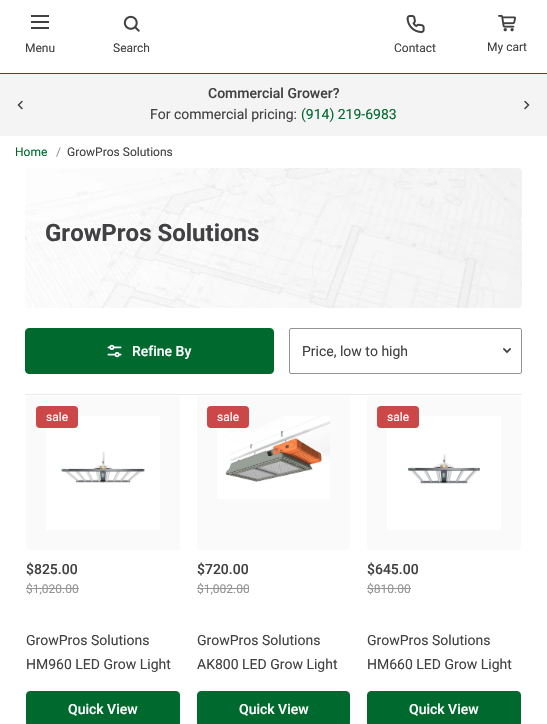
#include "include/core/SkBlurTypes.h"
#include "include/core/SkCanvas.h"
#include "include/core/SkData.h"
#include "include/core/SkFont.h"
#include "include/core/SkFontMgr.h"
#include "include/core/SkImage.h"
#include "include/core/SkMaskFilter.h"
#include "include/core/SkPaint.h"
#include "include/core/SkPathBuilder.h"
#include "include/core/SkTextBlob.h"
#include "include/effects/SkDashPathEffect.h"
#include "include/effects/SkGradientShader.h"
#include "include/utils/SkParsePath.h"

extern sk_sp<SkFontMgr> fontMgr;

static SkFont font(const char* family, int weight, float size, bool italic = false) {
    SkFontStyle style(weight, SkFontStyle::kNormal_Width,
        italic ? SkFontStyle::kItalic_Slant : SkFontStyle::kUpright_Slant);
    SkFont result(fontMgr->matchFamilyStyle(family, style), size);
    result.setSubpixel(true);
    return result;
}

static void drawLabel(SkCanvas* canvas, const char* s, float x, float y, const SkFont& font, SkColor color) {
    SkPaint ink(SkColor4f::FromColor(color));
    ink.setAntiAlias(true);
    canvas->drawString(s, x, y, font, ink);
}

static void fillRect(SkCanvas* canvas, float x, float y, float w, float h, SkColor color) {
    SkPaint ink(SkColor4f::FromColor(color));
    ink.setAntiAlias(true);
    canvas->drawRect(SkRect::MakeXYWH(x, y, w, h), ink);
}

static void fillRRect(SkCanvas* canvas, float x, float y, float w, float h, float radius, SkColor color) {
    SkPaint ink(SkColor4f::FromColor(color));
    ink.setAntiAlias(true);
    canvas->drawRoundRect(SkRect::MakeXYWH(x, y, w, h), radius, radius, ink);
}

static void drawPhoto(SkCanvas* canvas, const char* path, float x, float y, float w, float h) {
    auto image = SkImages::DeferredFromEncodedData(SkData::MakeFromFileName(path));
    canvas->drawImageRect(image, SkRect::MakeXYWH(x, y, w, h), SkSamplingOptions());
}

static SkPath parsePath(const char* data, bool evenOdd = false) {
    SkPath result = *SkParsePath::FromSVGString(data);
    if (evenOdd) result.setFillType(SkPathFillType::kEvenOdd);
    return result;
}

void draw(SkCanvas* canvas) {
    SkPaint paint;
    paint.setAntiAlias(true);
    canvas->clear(0xFFFFFFFF);
    fillRect(canvas, 0, 73, 547, 1, 0xFF006A2E);
    fillRect(canvas, 31, 15, 18, 2, 0xFF414042);
    fillRect(canvas, 31, 21, 18, 2, 0xFF414042);
    fillRect(canvas, 31, 27, 18, 2, 0xFF414042);
    SkFont font1 = font("Roboto", 400, 12);
    drawLabel(canvas, "Menu", 25, 52, font1, 0xFF414042);
    drawPhoto(canvas, "assets/img1.png", 123, 15, 17, 17);
    drawLabel(canvas, "Search", 113, 52, font1, 0xFF414042);
    drawPhoto(canvas, "assets/img2.png", 406, 15, 19, 18);
    drawLabel(canvas, "Contact", 394, 52, font1, 0xFF414042);
    drawPhoto(canvas, "assets/img3.png", 498, 15, 18, 17);
    drawLabel(canvas, "My cart", 487, 51, font1, 0xFF414042);
    fillRect(canvas, 0, 74, 547, 62, 0xFFF4F4F4);
    paint.setStroke(true);
    paint.setStrokeWidth(1.5f);
    paint.setStrokeCap(SkPaint::kRound_Cap);
    paint.setColor(0xFF414042);
    canvas->drawPath(parsePath("M22 108.5L18.5 105L22 101.5"), paint);
    SkFont font2 = font("Roboto", 500, 14);
    drawLabel(canvas, "Commercial Grower?", 208, 98, font2, 0xFF414042);
    SkFont font3 = font("Roboto", 400, 14);
    drawLabel(canvas, "For commercial pricing:", 150, 119, font3, 0xFF414042);
    drawLabel(canvas, "(914) 219-6983", 301, 119, font3, 0xFF006A2E);
    canvas->drawPath(parsePath("M525 101.5L528.5 105L525 108.5"), paint);
    drawLabel(canvas, "Home", 15, 156, font1, 0xFF006A2E);
    drawLabel(canvas, "/", 56, 156, font1, 0xFF959595);
    drawLabel(canvas, "GrowPros Solutions", 67, 156, font1, 0xFF414042);
    drawPhoto(canvas, "assets/img4.png", 25, 168, 497, 140);
    SkFont font4 = font("Roboto", 700, 24);
    drawLabel(canvas, "GrowPros Solutions", 45, 241, font4, 0xFF414042);
    fillRect(canvas, 25, 394, 497, 1, 0xFFE9E9E9);
    paint.setStroke(false);
    paint.setColor(0xFF006A2E);
    canvas->drawRoundRect(SkRect::MakeXYWH(25.5f, 328.5f, 248, 45), 3.5f, 3.5f, paint);
    paint.setStroke(true);
    paint.setStrokeWidth(1);
    paint.setStrokeCap(SkPaint::kButt_Cap);
    canvas->drawRoundRect(SkRect::MakeXYWH(25.5f, 328.5f, 248, 45), 3.5f, 3.5f, paint);
    drawPhoto(canvas, "assets/img5.png", 107, 344, 15, 14);
    drawLabel(canvas, "Refine By", 132, 356, font2, 0xFFFFFFFF);
    drawPhoto(canvas, "assets/img6.png", 503, 348, 8, 6);
    paint.setColor(0xFF959595);
    canvas->drawRoundRect(SkRect::MakeXYWH(289.5f, 328.5f, 232, 45), 1.5f, 1.5f, paint);
    drawLabel(canvas, "Price, low to high", 302, 356, font3, 0xFF414042);
    fillRRect(canvas, 26, 396, 154, 154, 4, 0xFFFAFAFA);
    drawPhoto(canvas, "assets/img7.png", 46, 416, 114, 114);
    fillRRect(canvas, 36, 406, 42, 22, 4, 0xFFCC4848);
    drawLabel(canvas, "sale", 46, 421, font1, 0xFFFFFFFF);
    drawLabel(canvas, "$825.00", 26, 574, font2, 0xFF414042);
    drawLabel(canvas, "$1,020.00", 26, 593, font1, 0xFF959595);
    fillRect(canvas, 26, 588, 53, 1, 0xFF959595);
    drawLabel(canvas, "GrowPros Solutions", 26, 645, font3, 0xFF414042);
    drawLabel(canvas, "HM960 LED Grow Light", 26, 669, font3, 0xFF414042);
    paint.setStroke(false);
    paint.setColor(0xFF006A2E);
    canvas->drawRoundRect(SkRect::MakeXYWH(26.5f, 691.5f, 153, 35), 3.5f, 3.5f, paint);
    paint.setStroke(true);
    canvas->drawRoundRect(SkRect::MakeXYWH(26.5f, 691.5f, 153, 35), 3.5f, 3.5f, paint);
    drawLabel(canvas, "Quick View", 68, 714, font2, 0xFFFFFFFF);
    fillRRect(canvas, 197, 396, 153, 154, 4, 0xFFFAFAFA);
    drawPhoto(canvas, "assets/img8.png", 217, 416, 113, 83);
    fillRRect(canvas, 207, 406, 42, 22, 4, 0xFFCC4848);
    drawLabel(canvas, "sale", 217, 421, font1, 0xFFFFFFFF);
    drawLabel(canvas, "$720.00", 197, 574, font2, 0xFF414042);
    drawLabel(canvas, "$1,002.00", 197, 593, font1, 0xFF959595);
    fillRect(canvas, 197, 588, 52, 1, 0xFF959595);
    drawLabel(canvas, "GrowPros Solutions", 197, 645, font3, 0xFF414042);
    drawLabel(canvas, "AK800 LED Grow Light", 197, 669, font3, 0xFF414042);
    paint.setStroke(false);
    canvas->drawRoundRect(SkRect::MakeXYWH(197.5f, 691.5f, 152, 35), 3.5f, 3.5f, paint);
    paint.setStroke(true);
    canvas->drawRoundRect(SkRect::MakeXYWH(197.5f, 691.5f, 152, 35), 3.5f, 3.5f, paint);
    drawLabel(canvas, "Quick View", 239, 714, font2, 0xFFFFFFFF);
    fillRRect(canvas, 367, 396, 154, 154, 4, 0xFFFAFAFA);
    drawPhoto(canvas, "assets/img9.png", 387, 416, 114, 114);
    fillRRect(canvas, 377, 406, 42, 22, 4, 0xFFCC4848);
    drawLabel(canvas, "sale", 387, 421, font1, 0xFFFFFFFF);
    drawLabel(canvas, "$645.00", 367, 574, font2, 0xFF414042);
    drawLabel(canvas, "$810.00", 367, 593, font1, 0xFF959595);
    fillRect(canvas, 367, 588, 44, 1, 0xFF959595);
    drawLabel(canvas, "GrowPros Solutions", 367, 645, font3, 0xFF414042);
    drawLabel(canvas, "HM660 LED Grow Light", 367, 669, font3, 0xFF414042);
    paint.setStroke(false);
    canvas->drawRoundRect(SkRect::MakeXYWH(367.5f, 691.5f, 153, 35), 3.5f, 3.5f, paint);
    paint.setStroke(true);
    canvas->drawRoundRect(SkRect::MakeXYWH(367.5f, 691.5f, 153, 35), 3.5f, 3.5f, paint);
    drawLabel(canvas, "Quick View", 409, 714, font2, 0xFFFFFFFF);
}
